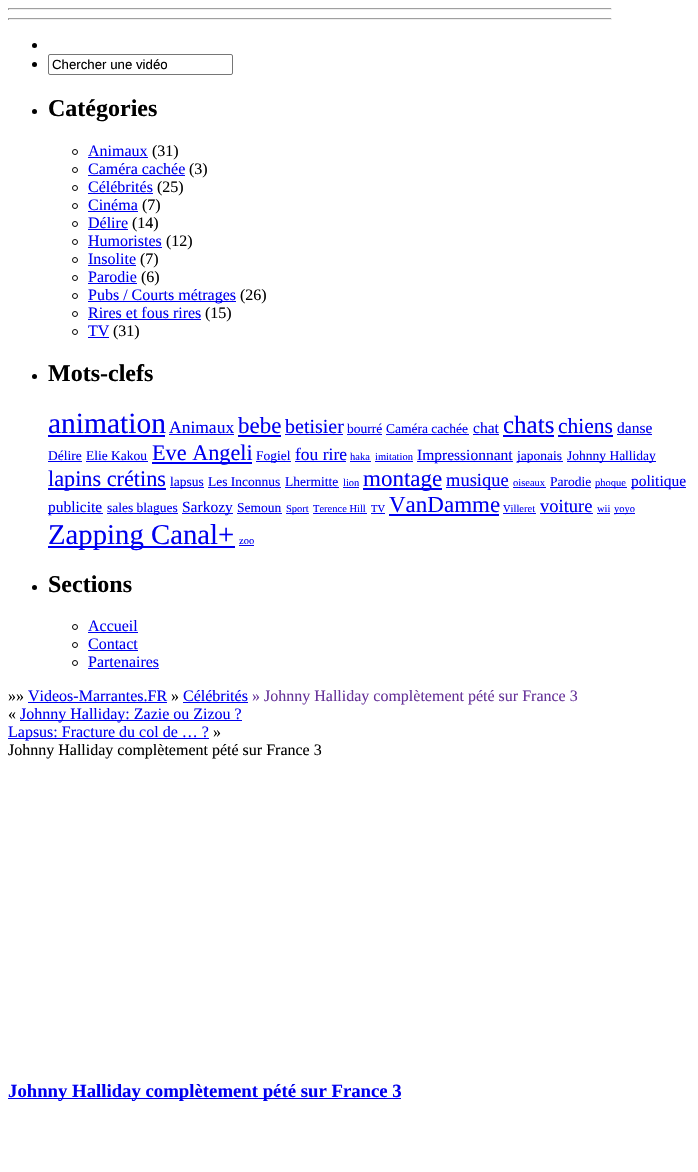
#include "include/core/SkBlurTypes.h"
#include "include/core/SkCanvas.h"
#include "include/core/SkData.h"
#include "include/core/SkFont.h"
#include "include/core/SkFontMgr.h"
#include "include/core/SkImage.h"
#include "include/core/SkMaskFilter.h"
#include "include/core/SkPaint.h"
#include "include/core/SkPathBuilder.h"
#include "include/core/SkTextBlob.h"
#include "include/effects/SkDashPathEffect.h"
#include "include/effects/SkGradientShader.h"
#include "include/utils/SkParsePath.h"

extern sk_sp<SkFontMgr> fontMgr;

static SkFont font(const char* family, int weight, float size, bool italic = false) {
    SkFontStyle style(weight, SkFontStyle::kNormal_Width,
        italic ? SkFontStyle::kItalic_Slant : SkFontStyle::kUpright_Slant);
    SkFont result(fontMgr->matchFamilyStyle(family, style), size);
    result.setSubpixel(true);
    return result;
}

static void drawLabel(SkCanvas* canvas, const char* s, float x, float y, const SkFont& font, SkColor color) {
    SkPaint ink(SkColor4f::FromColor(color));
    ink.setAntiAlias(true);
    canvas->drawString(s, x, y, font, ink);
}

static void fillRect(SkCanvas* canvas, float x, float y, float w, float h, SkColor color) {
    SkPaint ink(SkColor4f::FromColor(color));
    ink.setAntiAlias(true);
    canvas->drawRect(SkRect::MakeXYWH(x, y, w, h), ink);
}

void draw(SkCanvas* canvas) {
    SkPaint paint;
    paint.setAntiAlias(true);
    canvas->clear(0xFFFFFFFF);
    fillRect(canvas, 8, 8, 604, 1, 0xFF9F9F9F);
    fillRect(canvas, 611, 8, 1, 2, 0xFFEEEEEE);
    fillRect(canvas, 8, 9, 604, 1, 0xFFEEEEEE);
    fillRect(canvas, 8, 8, 1, 2, 0xFF9F9F9F);
    fillRect(canvas, 8, 18, 604, 1, 0xFF9F9F9F);
    fillRect(canvas, 611, 18, 1, 2, 0xFFEEEEEE);
    fillRect(canvas, 8, 19, 604, 1, 0xFFEEEEEE);
    fillRect(canvas, 8, 18, 1, 2, 0xFF9F9F9F);
    paint.setColor(0xFF000000);
    canvas->drawCircle(34.5f, 45.5f, 2.5f, paint);
    canvas->drawCircle(34.5f, 64.5f, 2.5f, paint);
    paint.setStroke(true);
    paint.setStrokeWidth(1);
    paint.setColor(0xFF767676);
    canvas->drawRoundRect(SkRect::MakeXYWH(48.5f, 54.5f, 184, 20), 1.5f, 1.5f, paint);
    SkFont font1 = font("Liberation Sans", 400, 13.25f);
    drawLabel(canvas, "Chercher une vidéo", 52, 69, font1, 0xFF000000);
    paint.setStroke(false);
    paint.setColor(0xFF000000);
    canvas->drawCircle(34.5f, 111.5f, 2.5f, paint);
    SkFont font2 = font("Liberation Serif", 700, 24);
    drawLabel(canvas, "Catégories", 48, 116, font2, 0xFF000000);
    paint.setStroke(true);
    canvas->drawCircle(75, 152, 2.5f, paint);
    SkFont font3 = font("Liberation Serif", 400, 16);
    drawLabel(canvas, "Animaux", 88, 156, font3, 0xFF0000EE);
    fillRect(canvas, 88, 157, 60, 1, 0xFF0000EE);
    drawLabel(canvas, "(31)", 152, 156, font3, 0xFF000000);
    canvas->drawCircle(75, 170, 2.5f, paint);
    drawLabel(canvas, "Caméra cachée", 88, 174, font3, 0xFF0000EE);
    fillRect(canvas, 88, 175, 97, 1, 0xFF0000EE);
    drawLabel(canvas, "(3)", 189, 174, font3, 0xFF000000);
    canvas->drawCircle(75, 188, 2.5f, paint);
    drawLabel(canvas, "Célébrités", 88, 192, font3, 0xFF0000EE);
    fillRect(canvas, 88, 193, 65, 1, 0xFF0000EE);
    drawLabel(canvas, "(25)", 157, 192, font3, 0xFF000000);
    canvas->drawCircle(75, 206, 2.5f, paint);
    drawLabel(canvas, "Cinéma", 88, 210, font3, 0xFF0000EE);
    fillRect(canvas, 88, 211, 50, 1, 0xFF0000EE);
    drawLabel(canvas, "(7)", 142, 210, font3, 0xFF000000);
    canvas->drawCircle(75, 224, 2.5f, paint);
    drawLabel(canvas, "Délire", 88, 228, font3, 0xFF0000EE);
    fillRect(canvas, 88, 229, 40, 1, 0xFF0000EE);
    drawLabel(canvas, "(14)", 132, 228, font3, 0xFF000000);
    canvas->drawCircle(75, 242, 2.5f, paint);
    drawLabel(canvas, "Humoristes", 88, 246, font3, 0xFF0000EE);
    fillRect(canvas, 88, 247, 74, 1, 0xFF0000EE);
    drawLabel(canvas, "(12)", 166, 246, font3, 0xFF000000);
    canvas->drawCircle(75, 260, 2.5f, paint);
    drawLabel(canvas, "Insolite", 88, 264, font3, 0xFF0000EE);
    fillRect(canvas, 88, 265, 48, 1, 0xFF0000EE);
    drawLabel(canvas, "(7)", 140, 264, font3, 0xFF000000);
    canvas->drawCircle(75, 278, 2.5f, paint);
    drawLabel(canvas, "Parodie", 88, 282, font3, 0xFF0000EE);
    fillRect(canvas, 88, 283, 49, 1, 0xFF0000EE);
    drawLabel(canvas, "(6)", 141, 282, font3, 0xFF000000);
    canvas->drawCircle(75, 296, 2.5f, paint);
    fillRect(canvas, 88, 301, 148, 1, 0xFF0000EE);
    drawLabel(canvas, "Pubs / Courts métrages", 88, 300, font3, 0xFF0000EE);
    drawLabel(canvas, "(26)", 240, 300, font3, 0xFF000000);
    canvas->drawCircle(75, 314, 2.5f, paint);
    drawLabel(canvas, "Rires et fous rires", 88, 318, font3, 0xFF0000EE);
    fillRect(canvas, 88, 319, 113, 1, 0xFF0000EE);
    drawLabel(canvas, "(15)", 205, 318, font3, 0xFF000000);
    canvas->drawCircle(75, 332, 2.5f, paint);
    drawLabel(canvas, "TV", 88, 336, font3, 0xFF0000EE);
    fillRect(canvas, 88, 337, 21, 1, 0xFF0000EE);
    drawLabel(canvas, "(31)", 113, 336, font3, 0xFF000000);
    paint.setStroke(false);
    canvas->drawCircle(34.5f, 376.5f, 2.5f, paint);
    drawLabel(canvas, "Mots-clefs", 48, 381, font2, 0xFF000000);
    SkFont font4 = font("Liberation Serif", 400, 29.5f);
    drawLabel(canvas, "animation", 48, 433, font4, 0xFF0000EE);
    fillRect(canvas, 48, 435, 117, 2, 0xFF0000EE);
    SkFont font5 = font("Liberation Serif", 400, 17.5f);
    drawLabel(canvas, "Animaux", 169, 433, font5, 0xFF0000EE);
    fillRect(canvas, 169, 434, 65, 1, 0xFF0000EE);
    SkFont font6 = font("Liberation Serif", 400, 23);
    drawLabel(canvas, "bebe", 238, 433, font6, 0xFF0000EE);
    fillRect(canvas, 238, 435, 43, 2, 0xFF0000EE);
    SkFont font7 = font("Liberation Serif", 400, 20);
    drawLabel(canvas, "betisier", 285, 433, font7, 0xFF0000EE);
    fillRect(canvas, 285, 434, 58, 1, 0xFF0000EE);
    SkFont font8 = font("Liberation Serif", 400, 13.5f);
    drawLabel(canvas, "bourré", 347, 433, font8, 0xFF0000EE);
    fillRect(canvas, 347, 434, 35, 1, 0xFF0000EE);
    drawLabel(canvas, "Caméra cachée", 386, 433, font8, 0xFF0000EE);
    fillRect(canvas, 386, 434, 83, 1, 0xFF0000EE);
    SkFont font9 = font("Liberation Serif", 400, 15.5f);
    drawLabel(canvas, "chat", 473, 433, font9, 0xFF0000EE);
    fillRect(canvas, 473, 434, 26, 1, 0xFF0000EE);
    SkFont font10 = font("Liberation Serif", 400, 25);
    drawLabel(canvas, "chats", 503, 433, font10, 0xFF0000EE);
    fillRect(canvas, 503, 435, 51, 2, 0xFF0000EE);
    SkFont font11 = font("Liberation Serif", 400, 21.5f);
    drawLabel(canvas, "chiens", 558, 433, font11, 0xFF0000EE);
    fillRect(canvas, 558, 435, 55, 2, 0xFF0000EE);
    drawLabel(canvas, "danse", 617, 433, font9, 0xFF0000EE);
    fillRect(canvas, 617, 434, 35, 1, 0xFF0000EE);
    drawLabel(canvas, "Délire", 48, 460, font8, 0xFF0000EE);
    fillRect(canvas, 48, 461, 34, 1, 0xFF0000EE);
    drawLabel(canvas, "Elie Kakou", 86, 460, font8, 0xFF0000EE);
    fillRect(canvas, 86, 461, 62, 1, 0xFF0000EE);
    fillRect(canvas, 152, 462, 100, 2, 0xFF0000EE);
    SkFont font12 = font("Liberation Serif", 400, 22.25f);
    drawLabel(canvas, "Eve Angeli", 152, 460, font12, 0xFF0000EE);
    fillRect(canvas, 256, 461, 35, 1, 0xFF0000EE);
    drawLabel(canvas, "Fogiel", 256, 460, font8, 0xFF0000EE);
    drawLabel(canvas, "fou rire", 295, 460, font5, 0xFF0000EE);
    fillRect(canvas, 295, 461, 51, 1, 0xFF0000EE);
    SkFont font13 = font("Liberation Serif", 400, 10.5f);
    drawLabel(canvas, "haka", 350, 460, font13, 0xFF0000EE);
    fillRect(canvas, 350, 461, 21, 1, 0xFF0000EE);
    drawLabel(canvas, "imitation", 375, 460, font13, 0xFF0000EE);
    fillRect(canvas, 375, 461, 38, 1, 0xFF0000EE);
    fillRect(canvas, 417, 461, 96, 1, 0xFF0000EE);
    drawLabel(canvas, "Impressionnant", 417, 460, font9, 0xFF0000EE);
    fillRect(canvas, 517, 461, 46, 1, 0xFF0000EE);
    drawLabel(canvas, "japonais", 517, 460, font8, 0xFF0000EE);
    fillRect(canvas, 567, 461, 89, 1, 0xFF0000EE);
    drawLabel(canvas, "Johnny Halliday", 567, 460, font8, 0xFF0000EE);
    fillRect(canvas, 48, 488, 118, 2, 0xFF0000EE);
    drawLabel(canvas, "lapins crétins", 48, 486, font12, 0xFF0000EE);
    fillRect(canvas, 170, 487, 34, 1, 0xFF0000EE);
    drawLabel(canvas, "lapsus", 170, 486, font8, 0xFF0000EE);
    drawLabel(canvas, "Les Inconnus", 208, 486, font8, 0xFF0000EE);
    fillRect(canvas, 208, 487, 73, 1, 0xFF0000EE);
    drawLabel(canvas, "Lhermitte", 285, 486, font8, 0xFF0000EE);
    fillRect(canvas, 285, 487, 54, 1, 0xFF0000EE);
    drawLabel(canvas, "lion", 343, 486, font13, 0xFF0000EE);
    fillRect(canvas, 343, 487, 16, 1, 0xFF0000EE);
    fillRect(canvas, 363, 488, 79, 2, 0xFF0000EE);
    drawLabel(canvas, "montage", 363, 486, font6, 0xFF0000EE);
    fillRect(canvas, 446, 487, 63, 1, 0xFF0000EE);
    SkFont font14 = font("Liberation Serif", 400, 18.5f);
    drawLabel(canvas, "musique", 446, 486, font14, 0xFF0000EE);
    drawLabel(canvas, "oiseaux", 513, 486, font13, 0xFF0000EE);
    fillRect(canvas, 513, 487, 33, 1, 0xFF0000EE);
    drawLabel(canvas, "Parodie", 550, 486, font8, 0xFF0000EE);
    fillRect(canvas, 550, 487, 41, 1, 0xFF0000EE);
    fillRect(canvas, 595, 487, 32, 1, 0xFF0000EE);
    drawLabel(canvas, "phoque", 595, 486, font13, 0xFF0000EE);
    fillRect(canvas, 631, 487, 55, 1, 0xFF0000EE);
    drawLabel(canvas, "politique", 631, 486, font9, 0xFF0000EE);
    fillRect(canvas, 48, 513, 55, 1, 0xFF0000EE);
    drawLabel(canvas, "publicite", 48, 512, font9, 0xFF0000EE);
    fillRect(canvas, 107, 513, 71, 1, 0xFF0000EE);
    drawLabel(canvas, "sales blagues", 107, 512, font8, 0xFF0000EE);
    fillRect(canvas, 182, 513, 51, 1, 0xFF0000EE);
    drawLabel(canvas, "Sarkozy", 182, 512, font9, 0xFF0000EE);
    drawLabel(canvas, "Semoun", 237, 512, font8, 0xFF0000EE);
    fillRect(canvas, 237, 513, 45, 1, 0xFF0000EE);
    fillRect(canvas, 286, 513, 23, 1, 0xFF0000EE);
    drawLabel(canvas, "Sport", 286, 512, font13, 0xFF0000EE);
    drawLabel(canvas, "Terence Hill", 313, 512, font13, 0xFF0000EE);
    fillRect(canvas, 313, 513, 54, 1, 0xFF0000EE);
    drawLabel(canvas, "TV", 371, 512, font13, 0xFF0000EE);
    fillRect(canvas, 371, 513, 14, 1, 0xFF0000EE);
    drawLabel(canvas, "VanDamme", 389, 512, font6, 0xFF0000EE);
    fillRect(canvas, 389, 514, 110, 2, 0xFF0000EE);
    drawLabel(canvas, "Villeret", 503, 512, font13, 0xFF0000EE);
    fillRect(canvas, 503, 513, 33, 1, 0xFF0000EE);
    drawLabel(canvas, "voiture", 540, 512, font14, 0xFF0000EE);
    fillRect(canvas, 540, 513, 53, 1, 0xFF0000EE);
    drawLabel(canvas, "wii", 597, 512, font13, 0xFF0000EE);
    fillRect(canvas, 597, 513, 13, 1, 0xFF0000EE);
    fillRect(canvas, 614, 513, 21, 1, 0xFF0000EE);
    drawLabel(canvas, "yoyo", 614, 512, font13, 0xFF0000EE);
    fillRect(canvas, 48, 546, 187, 2, 0xFF0000EE);
    SkFont font15 = font("Liberation Serif", 400, 28.75f);
    drawLabel(canvas, "Zapping Canal+", 48, 544, font15, 0xFF0000EE);
    drawLabel(canvas, "zoo", 239, 544, font13, 0xFF0000EE);
    fillRect(canvas, 239, 545, 15, 1, 0xFF0000EE);
    canvas->drawCircle(34.5f, 587.5f, 2.5f, paint);
    drawLabel(canvas, "Sections", 48, 592, font2, 0xFF000000);
    paint.setStroke(true);
    canvas->drawCircle(75, 627, 2.5f, paint);
    drawLabel(canvas, "Accueil", 88, 631, font3, 0xFF0000EE);
    fillRect(canvas, 88, 632, 50, 1, 0xFF0000EE);
    canvas->drawCircle(75, 645, 2.5f, paint);
    drawLabel(canvas, "Contact", 88, 649, font3, 0xFF0000EE);
    fillRect(canvas, 88, 650, 50, 1, 0xFF0000EE);
    canvas->drawCircle(75, 663, 2.5f, paint);
    drawLabel(canvas, "Partenaires", 88, 667, font3, 0xFF0000EE);
    fillRect(canvas, 88, 668, 71, 1, 0xFF0000EE);
    drawLabel(canvas, "»»", 8, 701, font3, 0xFF000000);
    drawLabel(canvas, "Videos-Marrantes.FR", 28, 701, font3, 0xFF0000EE);
    fillRect(canvas, 28, 702, 139, 1, 0xFF0000EE);
    drawLabel(canvas, "»", 171, 701, font3, 0xFF000000);
    drawLabel(canvas, "Célébrités", 183, 701, font3, 0xFF0000EE);
    fillRect(canvas, 183, 702, 65, 1, 0xFF0000EE);
    drawLabel(canvas, "» Johnny Halliday complètement pété sur France 3", 252, 701, font3, 0xFF663399);
    drawLabel(canvas, "«", 8, 719, font3, 0xFF000000);
    fillRect(canvas, 20, 720, 222, 1, 0xFF0000EE);
    drawLabel(canvas, "Johnny Halliday: Zazie ou Zizou ?", 20, 719, font3, 0xFF0000EE);
    fillRect(canvas, 8, 738, 201, 1, 0xFF0000EE);
    drawLabel(canvas, "Lapsus: Fracture du col de … ?", 8, 737, font3, 0xFF0000EE);
    drawLabel(canvas, "»", 213, 737, font3, 0xFF000000);
    drawLabel(canvas, "Johnny Halliday complètement pété sur France 3", 8, 755, font3, 0xFF000000);
    fillRect(canvas, 8, 1098, 393, 1, 0xFF0000EE);
    SkFont font16 = font("Liberation Serif", 700, 18.75f);
    drawLabel(canvas, "Johnny Halliday complètement pété sur France 3", 8, 1097, font16, 0xFF0000EE);
}
